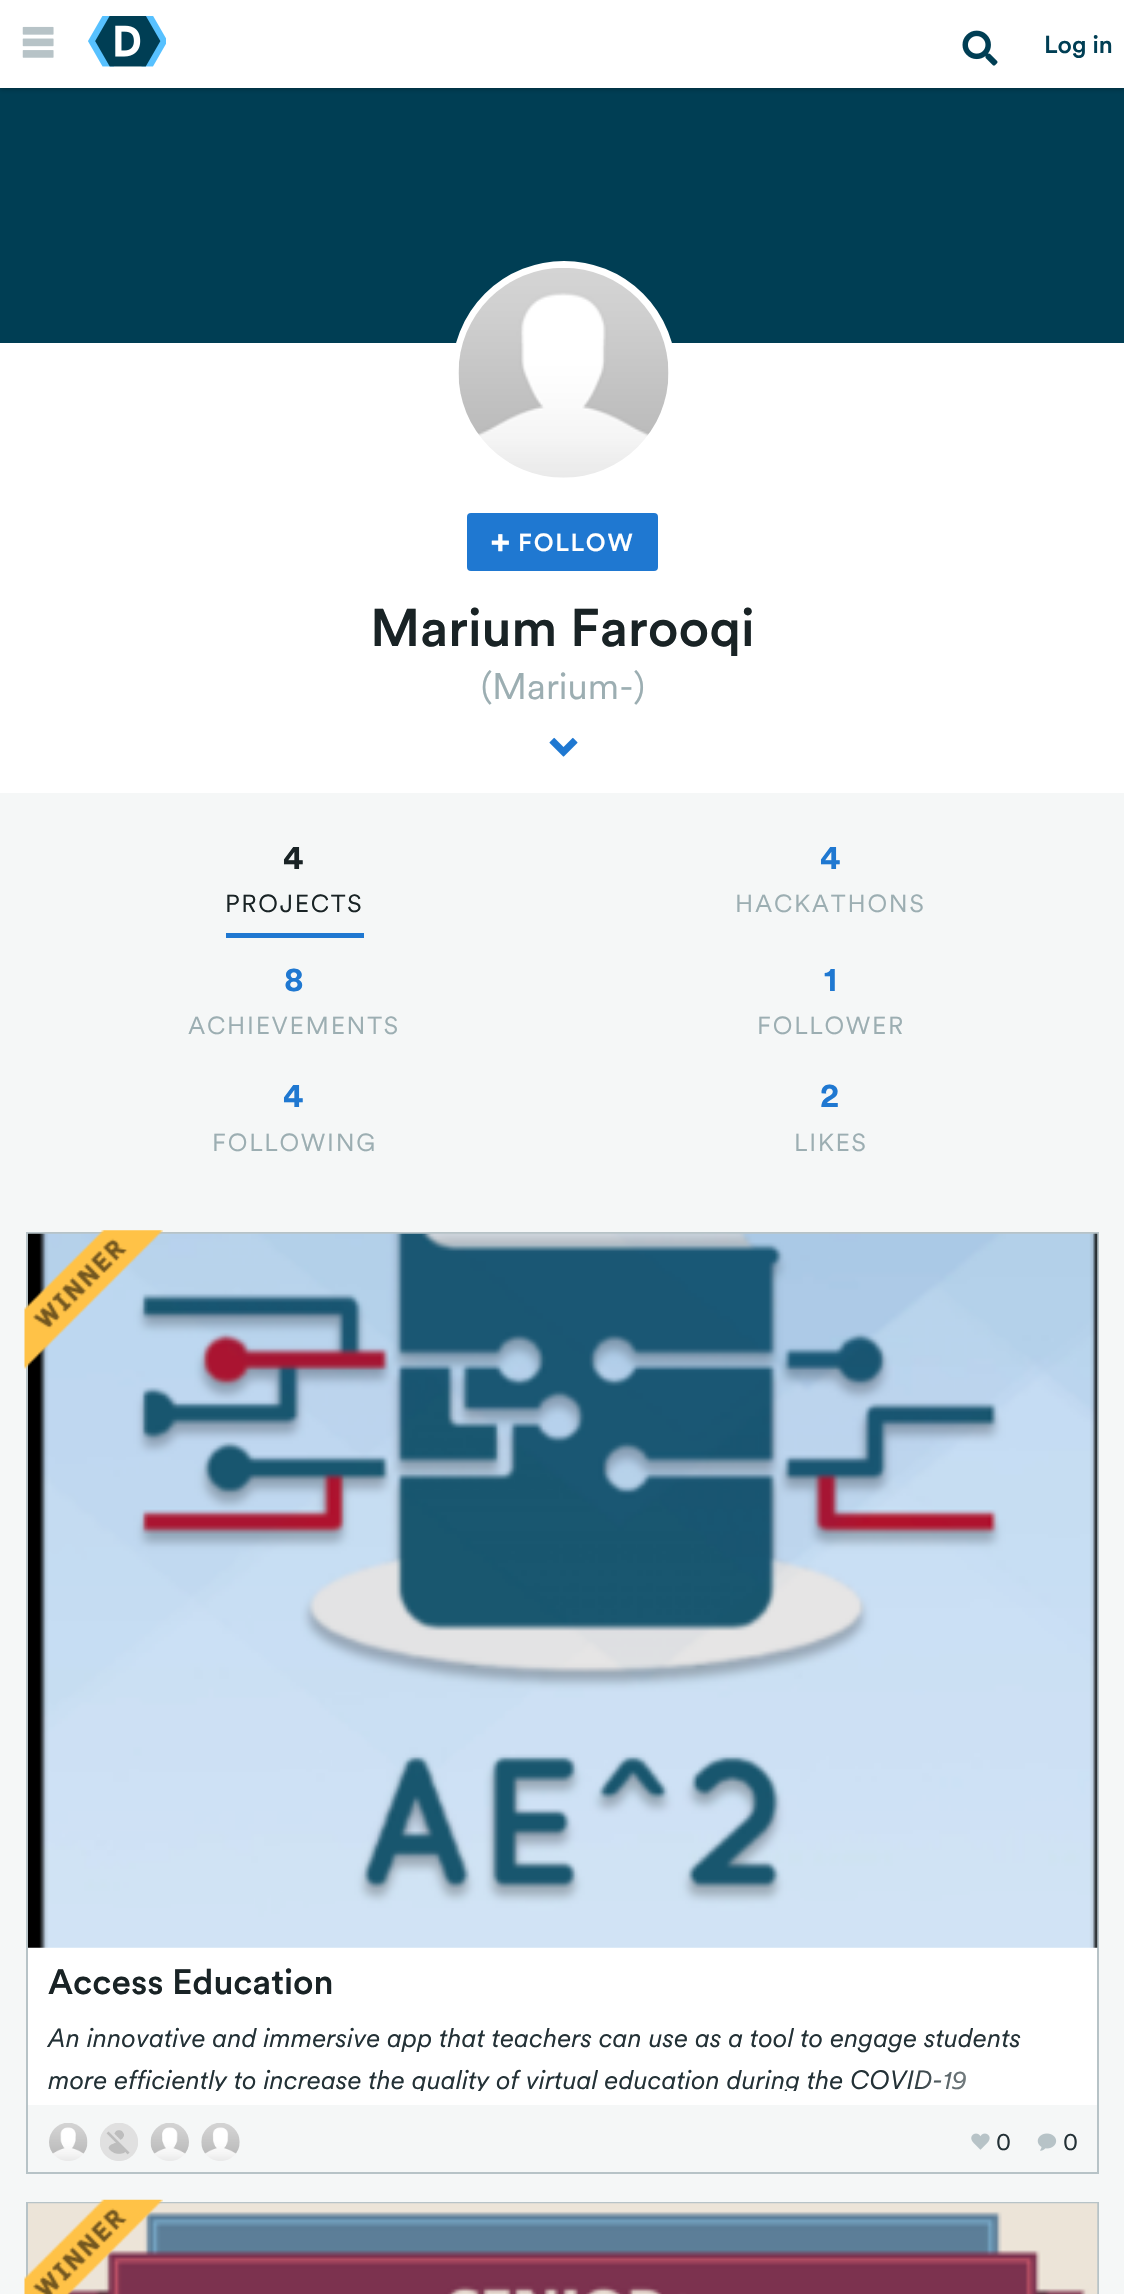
#include "include/core/SkBlurTypes.h"
#include "include/core/SkCanvas.h"
#include "include/core/SkData.h"
#include "include/core/SkFont.h"
#include "include/core/SkFontMgr.h"
#include "include/core/SkImage.h"
#include "include/core/SkMaskFilter.h"
#include "include/core/SkPaint.h"
#include "include/core/SkPathBuilder.h"
#include "include/core/SkTextBlob.h"
#include "include/effects/SkDashPathEffect.h"
#include "include/effects/SkGradientShader.h"
#include "include/utils/SkParsePath.h"

extern sk_sp<SkFontMgr> fontMgr;

static SkFont font(const char* family, int weight, float size, bool italic = false) {
    SkFontStyle style(weight, SkFontStyle::kNormal_Width,
        italic ? SkFontStyle::kItalic_Slant : SkFontStyle::kUpright_Slant);
    SkFont result(fontMgr->matchFamilyStyle(family, style), size);
    result.setSubpixel(true);
    return result;
}

static void drawLabel(SkCanvas* canvas, const char* s, float x, float y, const SkFont& font, SkColor color) {
    SkPaint ink(SkColor4f::FromColor(color));
    ink.setAntiAlias(true);
    canvas->drawString(s, x, y, font, ink);
}

static void drawTracked(SkCanvas* canvas, const char* s, float x, float y, const SkFont& font, const SkPaint& ink, float letter, float word) {
    std::vector<SkGlyphID> glyphs(font.countText(s, strlen(s), SkTextEncoding::kUTF8));
    std::vector<float> xs(glyphs.size());
    font.textToGlyphs(s, strlen(s), SkTextEncoding::kUTF8, glyphs);
    font.getXPos(glyphs, xs, x);
    float extra = 0;
    for (size_t i = 0; i < glyphs.size(); i++) {
        xs[i] += extra;
        extra += letter + word * (glyphs[i] == font.unicharToGlyph(' '));
    }
    canvas->drawTextBlob(SkTextBlob::MakeFromPosHGlyphs(glyphs, xs, y, font), 0, 0, ink);
}

static void fillRect(SkCanvas* canvas, float x, float y, float w, float h, SkColor color) {
    SkPaint ink(SkColor4f::FromColor(color));
    ink.setAntiAlias(true);
    canvas->drawRect(SkRect::MakeXYWH(x, y, w, h), ink);
}

static void fillRRect(SkCanvas* canvas, float x, float y, float w, float h, float radius, SkColor color) {
    SkPaint ink(SkColor4f::FromColor(color));
    ink.setAntiAlias(true);
    canvas->drawRoundRect(SkRect::MakeXYWH(x, y, w, h), radius, radius, ink);
}

static void drawPhoto(SkCanvas* canvas, const char* path, float x, float y, float w, float h) {
    auto image = SkImages::DeferredFromEncodedData(SkData::MakeFromFileName(path));
    canvas->drawImageRect(image, SkRect::MakeXYWH(x, y, w, h), SkSamplingOptions());
}

void draw(SkCanvas* canvas) {
    SkPaint paint;
    paint.setAntiAlias(true);
    canvas->clear(0xFFFFFFFF);
    fillRect(canvas, 0, 88, 1124, 255, 0xFF003E54);
    paint.setColor(0x4D000000);
    paint.setMaskFilter(SkMaskFilter::MakeBlur(kNormal_SkBlurStyle, 2.5f));
    canvas->drawRect(SkRect::MakeXYWH(0, 2, 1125, 87), paint);
    paint.setMaskFilter(nullptr);
    fillRect(canvas, 0, 0, 1124, 88, 0xFFFFFFFF);
    drawPhoto(canvas, "assets/img1.png", 22, 26, 32, 32);
    drawPhoto(canvas, "assets/img2.png", 88, 16, 78, 51);
    drawPhoto(canvas, "assets/img3.png", 962, 30, 36, 36);
    SkFont font1 = font("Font", 500, 24.5f);
    drawLabel(canvas, "Log in", 1044, 53, font1, 0xFF003E54);
    paint.setColor(0xFFFFFFFF);
    canvas->drawCircle(564, 373, 108.5f, paint);
    paint.setStroke(true);
    paint.setStrokeWidth(7);
    canvas->drawCircle(564, 373, 108.5f, paint);
    drawPhoto(canvas, "assets/img4.png", 458, 268, 211, 210);
    fillRRect(canvas, 467, 513, 191, 58, 4, 0xFF1F78D1);
    drawPhoto(canvas, "assets/img5.png", 491, 534, 18, 18);
    paint.setStroke(false);
    drawTracked(canvas, "FOLLOW", 518, 551, font1, paint, 1.75f, 0);
    SkFont font2 = font("Font", 500, 52.5f);
    drawLabel(canvas, "Marium Farooqi", 370, 646, font2, 0xFF192325);
    SkFont font3 = font("Font", 400, 36.75f);
    drawLabel(canvas, "(Marium-)", 481, 699, font3, 0xFF9CAEB2);
    drawPhoto(canvas, "assets/img6.png", 549, 737, 29, 20);
    fillRect(canvas, 0, 793, 1124, 1501, 0xFFF5F7F7);
    fillRect(canvas, 226, 933, 138, 5, 0xFF1F78D1);
    SkFont font4 = font("Font", 700, 34);
    paint.setColor(0xFF192325);
    drawTracked(canvas, "4", 283, 869, font4, paint, 1.75f, 0);
    SkFont font5 = font("Font", 400, 24.5f);
    drawTracked(canvas, "PROJECTS", 225, 912, font5, paint, 1.75f, 0);
    paint.setColor(0xFF1F78D1);
    drawTracked(canvas, "4", 820, 869, font4, paint, 1.75f, 0);
    paint.setColor(0xFF9CAEB2);
    drawTracked(canvas, "HACKATHONS", 735, 912, font5, paint, 1.75f, 0);
    paint.setColor(0xFF1F78D1);
    drawTracked(canvas, "8", 284, 991, font4, paint, 1.75f, 0);
    paint.setColor(0xFF9CAEB2);
    drawTracked(canvas, "ACHIEVEMENTS", 188, 1034, font5, paint, 1.75f, 0);
    paint.setColor(0xFF1F78D1);
    drawTracked(canvas, "1", 824, 991, font4, paint, 1.75f, 0);
    paint.setColor(0xFF9CAEB2);
    drawTracked(canvas, "FOLLOWER", 757, 1034, font5, paint, 1.75f, 0);
    paint.setColor(0xFF1F78D1);
    drawTracked(canvas, "4", 283, 1107, font4, paint, 1.75f, 0);
    paint.setColor(0xFF9CAEB2);
    drawTracked(canvas, "FOLLOWING", 212, 1151, font5, paint, 1.75f, 0);
    paint.setColor(0xFF1F78D1);
    drawTracked(canvas, "2", 820, 1107, font4, paint, 1.75f, 0);
    paint.setColor(0xFF9CAEB2);
    drawTracked(canvas, "LIKES", 794, 1151, font5, paint, 1.75f, 0);
    fillRect(canvas, 28, 1947, 1069, 158, 0xFFFFFFFF);
    paint.setStroke(true);
    paint.setStrokeWidth(2);
    paint.setColor(0xFFB7C3C7);
    canvas->drawRect(SkRect::MakeXYWH(27, 1233, 1071, 940), paint);
    drawPhoto(canvas, "assets/img8.png", 28, 1233, 1070, 715);
    drawPhoto(canvas, "assets/img7.png", 24, 1230, 139, 139);
    SkFont font6 = font("Font", 500, 35);
    drawLabel(canvas, "Access Education", 48, 1994, font6, 0xFF192325);
    SkFont font7 = font("Font", 400, 26.25f, true);
    drawLabel(canvas, "An innovative and immersive app that teachers can use as a tool to engage students", 48, 2047, font7, 0xFF233136);
    canvas->save();
    canvas->clipRect(SkRect::MakeXYWH(47, 2018, 1031, 73));
    drawLabel(canvas, "more efficiently to increase the quality of virtual education during the COVID-19", 48, 2089, font7, 0xFF233136);
    canvas->restore();
    paint.setStroke(false);
    {
        const SkColor colors[] = {0x00FFFFFF, 0xFFFFFFFF};
        const float stops[] = {0, 1};
        const SkPoint ends[] = {{903, 2073}, {1078, 2073}};
        paint.setShader(SkGradientShader::MakeLinear(ends, colors, stops, 2, SkTileMode::kClamp));
        paint.setAlpha(255);
    }
    canvas->drawRect(SkRect::MakeXYWH(907, 2070, 59, 20), paint);
    drawPhoto(canvas, "assets/img9.png", 49, 2123, 39, 38);
    drawPhoto(canvas, "assets/img10.png", 100, 2123, 38, 38);
    drawPhoto(canvas, "assets/img11.png", 150, 2123, 39, 38);
    drawPhoto(canvas, "assets/img12.png", 201, 2123, 39, 38);
    drawPhoto(canvas, "assets/img13.png", 971, 2133, 19, 17);
    drawLabel(canvas, "0", 996, 2150, font5, 0xFF233136);
    drawPhoto(canvas, "assets/img14.png", 1037, 2133, 20, 18);
    drawLabel(canvas, "0", 1063, 2150, font5, 0xFF233136);
    paint.setStroke(true);
    paint.setShader(nullptr);
    paint.setColor(0xFFB7C3C7);
    canvas->drawRect(SkRect::MakeXYWH(27, 2203, 1071, 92), paint);
    drawPhoto(canvas, "assets/img16.png", 28, 2203, 1070, 91);
    drawPhoto(canvas, "assets/img15.png", 24, 2199, 139, 95);
}
